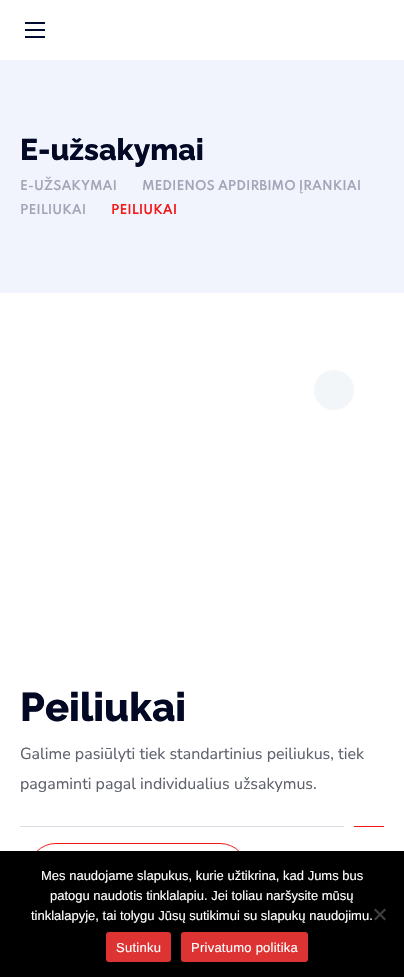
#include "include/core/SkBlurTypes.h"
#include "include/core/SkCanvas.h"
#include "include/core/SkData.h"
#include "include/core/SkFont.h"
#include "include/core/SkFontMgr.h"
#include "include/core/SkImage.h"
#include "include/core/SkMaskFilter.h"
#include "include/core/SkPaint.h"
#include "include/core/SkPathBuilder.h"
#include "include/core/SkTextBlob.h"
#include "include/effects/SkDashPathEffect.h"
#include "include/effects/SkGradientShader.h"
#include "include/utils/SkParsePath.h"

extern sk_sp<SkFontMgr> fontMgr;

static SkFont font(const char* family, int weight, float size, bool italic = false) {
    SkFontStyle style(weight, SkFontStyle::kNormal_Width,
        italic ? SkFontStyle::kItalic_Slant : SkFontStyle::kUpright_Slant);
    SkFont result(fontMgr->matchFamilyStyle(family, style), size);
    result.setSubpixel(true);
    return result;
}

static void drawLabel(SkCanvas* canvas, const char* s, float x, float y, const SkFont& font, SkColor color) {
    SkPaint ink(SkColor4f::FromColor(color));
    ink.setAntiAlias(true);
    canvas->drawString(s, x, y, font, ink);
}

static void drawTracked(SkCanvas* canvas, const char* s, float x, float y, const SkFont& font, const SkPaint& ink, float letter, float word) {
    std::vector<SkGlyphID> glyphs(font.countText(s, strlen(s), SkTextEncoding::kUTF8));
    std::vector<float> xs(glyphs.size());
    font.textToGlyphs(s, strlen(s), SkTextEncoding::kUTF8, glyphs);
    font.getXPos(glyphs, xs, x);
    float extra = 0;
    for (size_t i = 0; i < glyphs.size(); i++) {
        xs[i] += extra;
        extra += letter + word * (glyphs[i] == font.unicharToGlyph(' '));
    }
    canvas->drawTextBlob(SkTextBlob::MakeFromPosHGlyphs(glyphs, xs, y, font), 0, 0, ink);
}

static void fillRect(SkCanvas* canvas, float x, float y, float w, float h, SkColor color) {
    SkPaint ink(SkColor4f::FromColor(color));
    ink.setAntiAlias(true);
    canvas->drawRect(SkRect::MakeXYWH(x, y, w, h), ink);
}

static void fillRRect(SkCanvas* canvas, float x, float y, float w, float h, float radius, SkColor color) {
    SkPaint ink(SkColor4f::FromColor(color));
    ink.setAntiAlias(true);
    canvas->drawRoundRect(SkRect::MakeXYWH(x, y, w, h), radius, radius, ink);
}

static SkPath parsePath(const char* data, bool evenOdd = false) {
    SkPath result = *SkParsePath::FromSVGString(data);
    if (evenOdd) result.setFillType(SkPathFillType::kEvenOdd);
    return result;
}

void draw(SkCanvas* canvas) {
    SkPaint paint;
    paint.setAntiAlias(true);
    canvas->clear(0xFFFFFFFF);
    fillRect(canvas, 25, 22, 20, 2, 0xFF000B33);
    fillRect(canvas, 25, 29, 20, 2, 0xFF000B33);
    fillRect(canvas, 25, 36, 20, 2, 0xFF000B33);
    fillRect(canvas, 0, 60, 404, 233, 0xFFF1F4FC);
    SkFont font1 = font("Raleway", 800, 30);
    drawLabel(canvas, "E-užsakymai", 20, 160, font1, 0xFF030925);
    SkFont font2 = font("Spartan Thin", 600, 12);
    drawLabel(canvas, "E-UŽSAKYMAI", 20, 190, font2, 0xFFA2A5B6);
    drawLabel(canvas, "MEDIENOS APDIRBIMO ĮRANKIAI", 142, 190, font2, 0xFFA2A5B6);
    drawLabel(canvas, "PEILIUKAI", 20, 214, font2, 0xFFA2A5B6);
    drawLabel(canvas, "PEILIUKAI", 111, 214, font2, 0xFFF31717);
    paint.setColor(0xFFF2F6F9);
    canvas->drawCircle(334, 390, 20, paint);
    SkFont font3 = font("Raleway", 800, 40);
    drawLabel(canvas, "Peiliukai", 20, 721, font3, 0xFF030925);
    SkFont font4 = font("Nunito Sans", 400, 16);
    drawLabel(canvas, "Galime pasiūlyti tiek standartinius peiliukus, tiek", 20, 759, font4, 0xFF60626D);
    drawLabel(canvas, "pagaminti pagal individualius užsakymus.", 20, 789, font4, 0xFF60626D);
    fillRect(canvas, 20, 826, 324, 1, 0xFFDADCE4);
    fillRect(canvas, 354, 826, 30, 1, 0xFFF31717);
    paint.setStroke(true);
    paint.setStrokeWidth(1);
    paint.setColor(0xFFF31717);
    canvas->drawRoundRect(SkRect::MakeXYWH(28.5f, 843.5f, 219, 55), 27.5f, 27.5f, paint);
    fillRect(canvas, 0, 851, 404, 126, 0xFF000000);
    SkFont font5 = font("Liberation Sans", 400, 13);
    drawLabel(canvas, "Mes naudojame slapukus, kurie užtikrina, kad Jums bus", 41, 880, font5, 0xFFFFFFFF);
    drawLabel(canvas, "patogu naudotis tinklalapiu. Jei toliau naršysite mūsų", 50, 900, font5, 0xFFFFFFFF);
    drawLabel(canvas, "tinklalapyje, tai tolygu Jūsų sutikimui su slapukų naudojimu.", 31, 920, font5, 0xFFFFFFFF);
    paint.setStroke(false);
    paint.setColor(0xFF404040);
    canvas->drawPath(parsePath("M384.5 908.5L386 910L375.5 920.5L374 919Z"), paint);
    canvas->drawPath(parsePath("M374 910L375.5 908.5L386 919L384.5 920.5Z"), paint);
    fillRRect(canvas, 106, 932, 65, 30, 3, 0xFFDD3333);
    paint.setColor(0xFFFFFFFF);
    drawTracked(canvas, "Sutinku", 116, 952, font5, paint, 0.25f, 0);
    fillRRect(canvas, 181, 932, 127, 30, 3, 0xFFDD3333);
    drawTracked(canvas, "Privatumo politika", 191, 952, font5, paint, 0.25f, 0);
}
